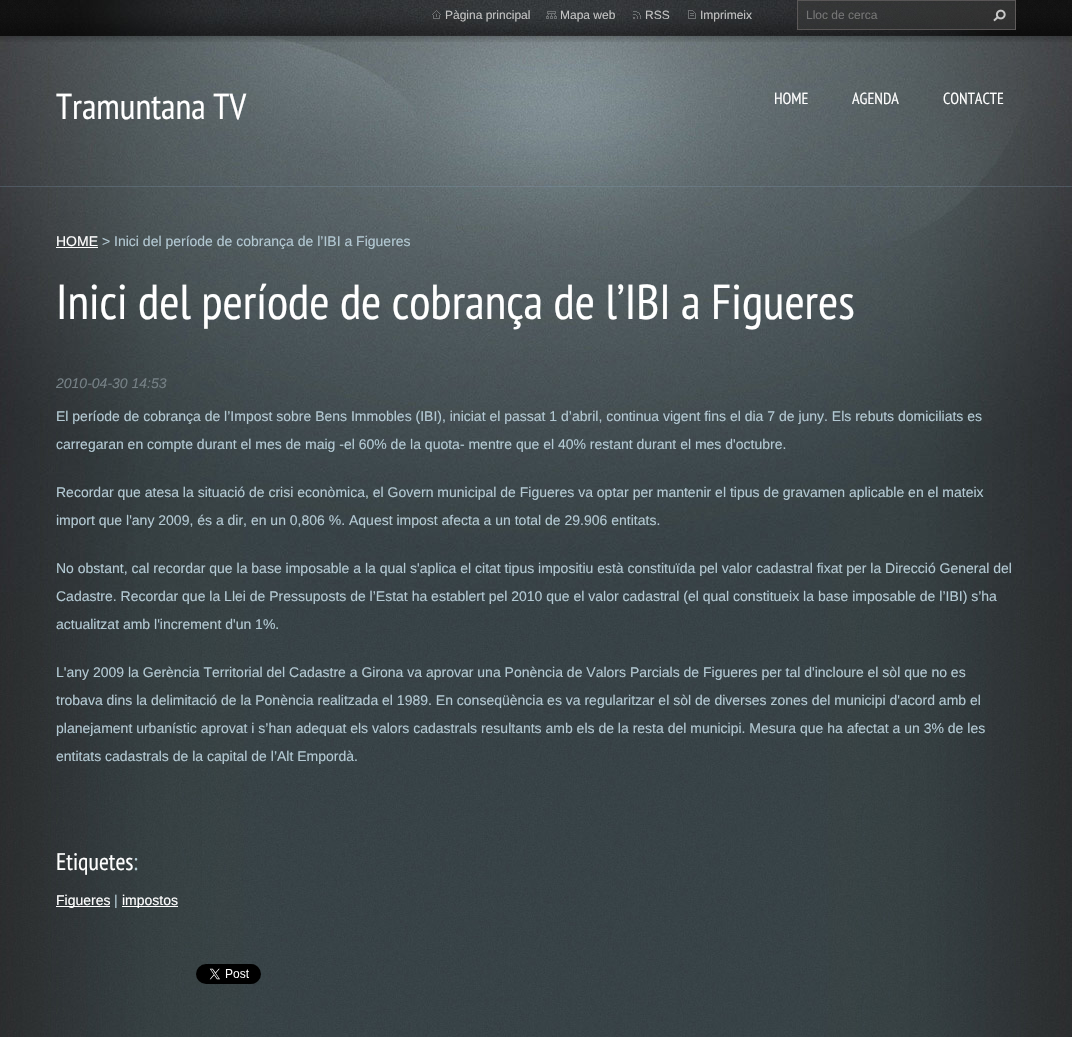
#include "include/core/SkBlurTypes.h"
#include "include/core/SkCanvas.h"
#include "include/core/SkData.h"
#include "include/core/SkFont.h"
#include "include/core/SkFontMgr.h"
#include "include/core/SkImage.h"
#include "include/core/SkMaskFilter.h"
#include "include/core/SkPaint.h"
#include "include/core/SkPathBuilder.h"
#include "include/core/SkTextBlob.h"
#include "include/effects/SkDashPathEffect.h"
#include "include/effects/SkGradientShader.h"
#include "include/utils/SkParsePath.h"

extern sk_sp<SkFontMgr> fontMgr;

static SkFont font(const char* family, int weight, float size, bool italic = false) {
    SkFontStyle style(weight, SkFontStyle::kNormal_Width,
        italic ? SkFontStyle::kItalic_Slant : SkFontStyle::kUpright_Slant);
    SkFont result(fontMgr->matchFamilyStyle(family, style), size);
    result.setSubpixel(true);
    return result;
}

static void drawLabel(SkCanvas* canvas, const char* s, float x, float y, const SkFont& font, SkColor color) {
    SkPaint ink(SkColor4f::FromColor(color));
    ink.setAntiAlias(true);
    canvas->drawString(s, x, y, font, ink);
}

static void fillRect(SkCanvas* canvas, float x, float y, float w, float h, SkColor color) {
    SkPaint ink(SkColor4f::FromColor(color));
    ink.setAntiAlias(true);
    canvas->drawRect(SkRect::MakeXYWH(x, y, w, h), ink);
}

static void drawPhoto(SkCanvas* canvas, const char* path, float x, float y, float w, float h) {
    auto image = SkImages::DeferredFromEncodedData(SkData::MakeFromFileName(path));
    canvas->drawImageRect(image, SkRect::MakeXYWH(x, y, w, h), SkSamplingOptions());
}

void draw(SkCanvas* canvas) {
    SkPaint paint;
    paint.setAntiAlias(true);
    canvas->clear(0xFFFFFFFF);
    drawPhoto(canvas, "assets/img1.png", 0, 592, 1072, 445);
    drawPhoto(canvas, "assets/img2.png", 0, 36, 1072, 556);
    fillRect(canvas, 0, 186, 1072, 1, 0x42839EB9);
    drawPhoto(canvas, "assets/img3.png", 0, 0, 1072, 42);
    drawPhoto(canvas, "assets/img4.png", 56, 0, 945, 36);
    drawPhoto(canvas, "assets/img5.png", 432, 10, 9, 9);
    SkFont font1 = font("Liberation Sans", 400, 12);
    drawLabel(canvas, "Pàgina principal", 445, 19, font1, 0xFFC3C3C3);
    drawPhoto(canvas, "assets/img6.png", 546, 11, 11, 8);
    drawLabel(canvas, "Mapa web", 560, 19, font1, 0xFFC3C3C3);
    drawPhoto(canvas, "assets/img7.png", 633, 11, 8, 8);
    drawLabel(canvas, "RSS", 645, 19, font1, 0xFFC3C3C3);
    drawPhoto(canvas, "assets/img8.png", 688, 10, 8, 9);
    drawLabel(canvas, "Imprimeix", 700, 19, font1, 0xFFC3C3C3);
    drawPhoto(canvas, "assets/img9.png", 797, 0, 219, 30);
    drawLabel(canvas, "Lloc de cerca", 806, 19, font1, 0xFF757575);
    drawPhoto(canvas, "assets/img10.png", 993, 9, 13, 13);
    SkFont font2 = font("PT Sans Narrow", 400, 36);
    drawLabel(canvas, "Tramuntana TV", 56, 119, font2, 0xFFFFFFFF);
    SkFont font3 = font("PT Sans Narrow", 400, 16);
    drawLabel(canvas, "HOME", 774, 104, font3, 0xFFFFFFFF);
    drawLabel(canvas, "AGENDA", 852, 104, font3, 0xFFFFFFFF);
    drawLabel(canvas, "CONTACTE", 943, 104, font3, 0xFFFFFFFF);
    SkFont font4 = font("Liberation Sans", 400, 14);
    drawLabel(canvas, "HOME", 56, 246, font4, 0xFFFFFFFF);
    fillRect(canvas, 56, 247, 42, 1, 0xFFFFFFFF);
    drawLabel(canvas, "> Inici del període de cobrança de l’IBI a Figueres", 102, 246, font4, 0xFFB3C9D3);
    SkFont font5 = font("PT Sans Narrow", 400, 49);
    drawLabel(canvas, "Inici del període de cobrança de l’IBI a Figueres", 56, 319, font5, 0xFFFFFFFF);
    SkFont font6 = font("Liberation Sans", 400, 14, true);
    drawLabel(canvas, "2010-04-30 14:53", 56, 388, font6, 0xFF758085);
    drawLabel(canvas, "El període de cobrança de l’Impost sobre Bens Immobles (IBI), iniciat el passat 1 d’abril, continua vigent fins el dia 7 de juny. Els rebuts domiciliats es", 56, 421, font4, 0xFFB3C9D3);
    drawLabel(canvas, "carregaran en compte durant el mes de maig -el 60% de la quota- mentre que el 40% restant durant el mes d'octubre.", 56, 449, font4, 0xFFB3C9D3);
    drawLabel(canvas, "Recordar que atesa la situació de crisi econòmica, el Govern municipal de Figueres va optar per mantenir el tipus de gravamen aplicable en el mateix", 56, 497, font4, 0xFFB3C9D3);
    drawLabel(canvas, "import que l'any 2009, és a dir, en un 0,806 %. Aquest impost afecta a un total de 29.906 entitats.", 56, 525, font4, 0xFFB3C9D3);
    drawLabel(canvas, "No obstant, cal recordar que la base imposable a la qual s'aplica el citat tipus impositiu està constituïda pel valor cadastral fixat per la Direcció General del", 56, 573, font4, 0xFFB3C9D3);
    drawLabel(canvas, "Cadastre. Recordar que la Llei de Pressuposts de l’Estat ha establert pel 2010 que el valor cadastral (el qual constitueix la base imposable de l’IBI) s’ha", 56, 601, font4, 0xFFB3C9D3);
    drawLabel(canvas, "actualitzat amb l'increment d'un 1%.", 56, 629, font4, 0xFFB3C9D3);
    drawLabel(canvas, "L'any 2009 la Gerència Territorial del Cadastre a Girona va aprovar una Ponència de Valors Parcials de Figueres per tal d'incloure el sòl que no es", 56, 677, font4, 0xFFB3C9D3);
    drawLabel(canvas, "trobava dins la delimitació de la Ponència realitzada el 1989. En conseqüència es va regularitzar el sòl de diverses zones del municipi d'acord amb el", 56, 705, font4, 0xFFB3C9D3);
    drawLabel(canvas, "planejament urbanístic aprovat i s’han adequat els valors cadastrals resultants amb els de la resta del municipi. Mesura que ha afectat a un 3% de les", 56, 733, font4, 0xFFB3C9D3);
    drawLabel(canvas, "entitats cadastrals de la capital de l’Alt Empordà.", 56, 761, font4, 0xFFB3C9D3);
    SkFont font7 = font("PT Sans Narrow", 400, 24);
    drawLabel(canvas, "Etiquetes", 56, 870, font7, 0xFFFFFFFF);
    drawLabel(canvas, ":", 133, 870, font7, 0xFFB3C9D3);
    fillRect(canvas, 56, 906, 54, 1, 0xFFFFFFFF);
    drawLabel(canvas, "Figueres", 56, 905, font4, 0xFFFFFFFF);
    drawLabel(canvas, "|", 114, 905, font4, 0xFFB3C9D3);
    fillRect(canvas, 122, 906, 56, 1, 0xFFFFFFFF);
    drawLabel(canvas, "impostos", 122, 905, font4, 0xFFFFFFFF);
    drawPhoto(canvas, "assets/img11.png", 196, 964, 65, 20);
}
